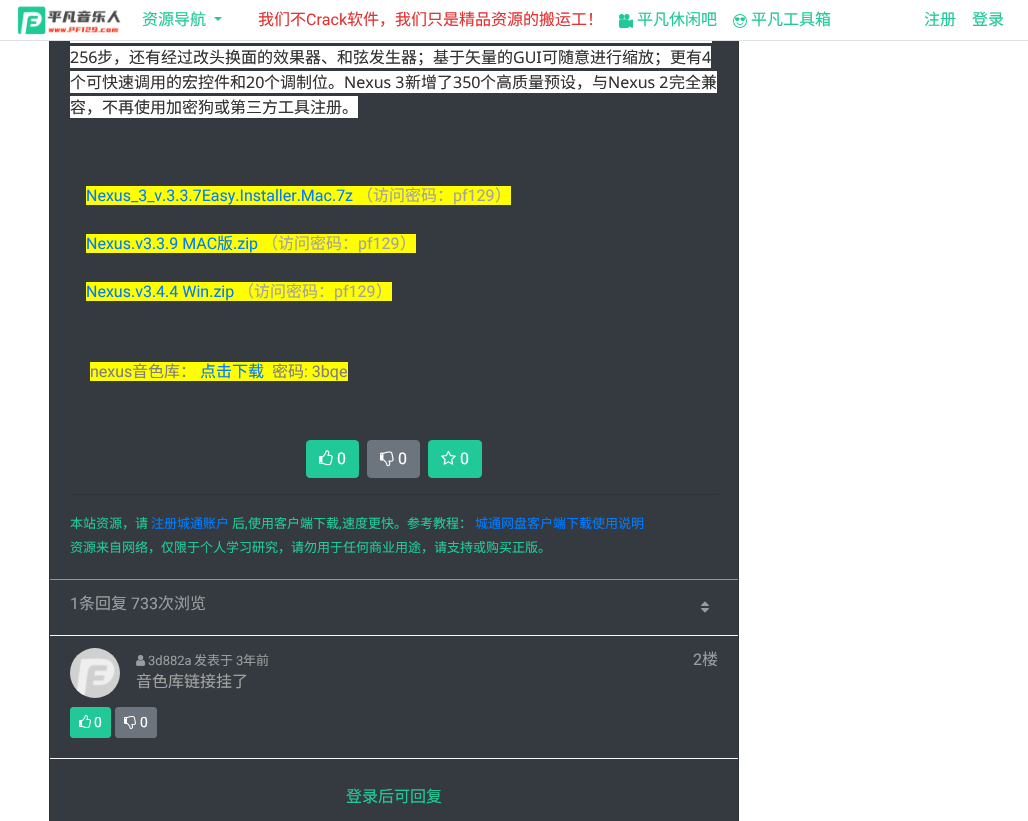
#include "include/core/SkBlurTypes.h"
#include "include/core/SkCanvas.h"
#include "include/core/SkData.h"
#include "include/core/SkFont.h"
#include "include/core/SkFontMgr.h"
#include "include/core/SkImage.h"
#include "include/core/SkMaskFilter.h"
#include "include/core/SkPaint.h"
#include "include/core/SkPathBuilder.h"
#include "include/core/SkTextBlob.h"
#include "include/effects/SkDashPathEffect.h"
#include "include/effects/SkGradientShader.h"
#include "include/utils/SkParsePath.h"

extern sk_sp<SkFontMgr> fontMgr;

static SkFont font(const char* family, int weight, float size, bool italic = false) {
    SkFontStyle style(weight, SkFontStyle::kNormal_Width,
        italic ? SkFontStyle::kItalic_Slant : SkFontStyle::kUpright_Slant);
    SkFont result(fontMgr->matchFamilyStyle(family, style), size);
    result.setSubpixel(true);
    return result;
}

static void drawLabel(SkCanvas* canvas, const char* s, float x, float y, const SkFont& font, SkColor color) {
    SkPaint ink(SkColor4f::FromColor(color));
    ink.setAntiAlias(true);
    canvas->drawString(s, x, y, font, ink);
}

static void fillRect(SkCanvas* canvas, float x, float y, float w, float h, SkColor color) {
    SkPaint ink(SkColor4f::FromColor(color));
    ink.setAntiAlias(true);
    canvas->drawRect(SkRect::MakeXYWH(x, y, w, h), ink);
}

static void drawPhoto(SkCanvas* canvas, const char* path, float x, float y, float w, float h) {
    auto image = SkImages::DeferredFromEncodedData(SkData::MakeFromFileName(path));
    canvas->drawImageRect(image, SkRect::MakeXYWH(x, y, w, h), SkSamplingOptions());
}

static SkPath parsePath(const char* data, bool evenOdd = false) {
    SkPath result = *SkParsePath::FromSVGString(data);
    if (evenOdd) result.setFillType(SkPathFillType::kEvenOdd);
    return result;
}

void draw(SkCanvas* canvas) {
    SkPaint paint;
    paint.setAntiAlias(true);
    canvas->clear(0xFFFFFFFF);
    fillRect(canvas, 50, 41, 688, 780, 0xFF343A40);
    paint.setStroke(true);
    paint.setStrokeWidth(1);
    paint.setColor(0xFF2E3338);
    canvas->drawRect(SkRect::MakeXYWH(49.5f, -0.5f, 689, 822), paint);
    fillRect(canvas, 49, 0, 690, 40, 0xFFFFFFFF);
    fillRect(canvas, 0, 40, 1028, 1, 0xFFDEE2E6);
    drawPhoto(canvas, "assets/img1.png", 17, 6, 104, 29);
    SkFont font1 = font("Noto Sans CJK SC", 400, 16);
    drawLabel(canvas, "资源导航", 142, 25, font1, 0xFF20C997);
    paint.setStroke(false);
    paint.setColor(0xFF20C997);
    canvas->drawPath(parsePath("M214 17H222L218 21Z"), paint);
    drawLabel(canvas, "我们不", 258, 25, font1, 0xFFE53333);
    SkFont font2 = font("Roboto", 400, 16);
    drawLabel(canvas, "Crack", 306, 25, font2, 0xFFE53333);
    drawLabel(canvas, "软件，我们只是精品资源的搬运工！", 347, 25, font1, 0xFFE53333);
    drawPhoto(canvas, "assets/img2.png", 619, 14, 14, 14);
    drawLabel(canvas, "平凡休闲吧", 637, 25, font1, 0xFF20C997);
    drawPhoto(canvas, "assets/img3.png", 733, 14, 14, 14);
    drawLabel(canvas, "平凡工具箱", 751, 25, font1, 0xFF20C997);
    drawLabel(canvas, "注册", 924, 25, font1, 0xFF20C997);
    drawLabel(canvas, "登录", 972, 25, font1, 0xFF20C997);
    fillRect(canvas, 70, 46, 641, 22, 0xFFFFFFFF);
    SkFont font3 = font("Noto Sans", 400, 16);
    drawLabel(canvas, "256", 70, 63, font3, 0xFF333333);
    drawLabel(canvas, "步，还有经过改头换面的效果器、和弦发生器；基于矢量的", 97, 63, font1, 0xFF333333);
    drawLabel(canvas, "GUI", 513, 63, font3, 0xFF333333);
    drawLabel(canvas, "可随意进行缩放；更有", 542, 63, font1, 0xFF333333);
    drawLabel(canvas, "4", 702, 63, font3, 0xFF333333);
    fillRect(canvas, 70, 41, 642, 2, 0xFFFFFFFF);
    fillRect(canvas, 70, 71, 647, 22, 0xFFFFFFFF);
    drawLabel(canvas, "个可快速调用的宏控件和", 70, 88, font1, 0xFF333333);
    drawLabel(canvas, "20", 246, 88, font3, 0xFF333333);
    drawLabel(canvas, "个调制位。", 264, 88, font1, 0xFF333333);
    drawLabel(canvas, "Nexus 3", 344, 88, font3, 0xFF333333);
    drawLabel(canvas, "新增了", 405, 88, font1, 0xFF333333);
    drawLabel(canvas, "350", 453, 88, font3, 0xFF333333);
    drawLabel(canvas, "个高质量预设，与", 480, 88, font1, 0xFF333333);
    drawLabel(canvas, "Nexus 2", 608, 88, font3, 0xFF333333);
    drawLabel(canvas, "完全兼", 669, 88, font1, 0xFF333333);
    fillRect(canvas, 70, 96, 288, 22, 0xFFFFFFFF);
    drawLabel(canvas, "容，不再使用加密狗或第三方工具注册。", 70, 113, font1, 0xFF333333);
    fillRect(canvas, 86, 186, 425, 19, 0xFFFFFF00);
    drawLabel(canvas, "Nexus_3_v.3.3.7Easy.Installer.Mac.7z", 86, 201, font2, 0xFF007BFF);
    drawLabel(canvas, "（访问密码：", 357, 201, font1, 0xFFA1A2A1);
    drawLabel(canvas, "pf129", 453, 201, font2, 0xFFA1A2A1);
    drawLabel(canvas, "）", 495, 201, font1, 0xFFA1A2A1);
    fillRect(canvas, 86, 234, 330, 19, 0xFFFFFF00);
    drawLabel(canvas, "Nexus.v3.3.9 MAC", 86, 249, font2, 0xFF007BFF);
    drawLabel(canvas, "版", 217, 249, font1, 0xFF007BFF);
    drawLabel(canvas, ".zip", 233, 249, font2, 0xFF007BFF);
    drawLabel(canvas, "（访问密码：", 262, 249, font1, 0xFFA1A2A1);
    drawLabel(canvas, "pf129", 358, 249, font2, 0xFFA1A2A1);
    drawLabel(canvas, "）", 400, 249, font1, 0xFFA1A2A1);
    fillRect(canvas, 86, 282, 306, 19, 0xFFFFFF00);
    drawLabel(canvas, "Nexus.v3.4.4 Win.zip", 86, 297, font2, 0xFF007BFF);
    drawLabel(canvas, "（访问密码：", 238, 297, font1, 0xFFA1A2A1);
    drawLabel(canvas, "pf129", 334, 297, font2, 0xFFA1A2A1);
    drawLabel(canvas, "）", 376, 297, font1, 0xFFA1A2A1);
    fillRect(canvas, 90, 362, 258, 19, 0xFFFFFF00);
    drawLabel(canvas, "nexus", 90, 377, font2, 0xFF7F7F7F);
    drawLabel(canvas, "音色库：", 132, 377, font1, 0xFF7F7F7F);
    drawLabel(canvas, "点击下载", 200, 377, font1, 0xFF007BFF);
    drawLabel(canvas, "密码", 272, 377, font1, 0xFF7F7F7F);
    drawLabel(canvas, ": 3bqe", 304, 377, font2, 0xFF7F7F7F);
    canvas->drawRoundRect(SkRect::MakeXYWH(306.5f, 440.5f, 52, 37), 3.5f, 3.5f, paint);
    paint.setStroke(true);
    canvas->drawRoundRect(SkRect::MakeXYWH(306.5f, 440.5f, 52, 37), 3.5f, 3.5f, paint);
    drawPhoto(canvas, "assets/img4.png", 319, 450, 14, 16);
    drawLabel(canvas, "0", 337, 464, font2, 0xFFFFFFFF);
    paint.setStroke(false);
    paint.setColor(0xFF6C757D);
    canvas->drawRoundRect(SkRect::MakeXYWH(367.5f, 440.5f, 52, 37), 3.5f, 3.5f, paint);
    paint.setStroke(true);
    canvas->drawRoundRect(SkRect::MakeXYWH(367.5f, 440.5f, 52, 37), 3.5f, 3.5f, paint);
    drawPhoto(canvas, "assets/img5.png", 380, 451, 14, 16);
    drawLabel(canvas, "0", 398, 464, font2, 0xFFFFFFFF);
    paint.setStroke(false);
    paint.setColor(0xFF20C997);
    canvas->drawRoundRect(SkRect::MakeXYWH(428.5f, 440.5f, 53, 37), 3.5f, 3.5f, paint);
    paint.setStroke(true);
    canvas->drawRoundRect(SkRect::MakeXYWH(428.5f, 440.5f, 53, 37), 3.5f, 3.5f, paint);
    drawPhoto(canvas, "assets/img6.png", 441, 450, 15, 15);
    drawLabel(canvas, "0", 460, 464, font2, 0xFFFFFFFF);
    fillRect(canvas, 70, 494, 648, 1, 0xFF2F343A);
    SkFont font4 = font("Noto Sans CJK SC", 400, 13);
    drawLabel(canvas, "本站资源，请", 70, 528, font4, 0xFF20C997);
    drawLabel(canvas, "注册城通账户", 151, 528, font4, 0xFF007BFF);
    drawLabel(canvas, "后", 232, 528, font4, 0xFF20C997);
    SkFont font5 = font("Roboto", 400, 13);
    drawLabel(canvas, ",", 245, 528, font5, 0xFF20C997);
    drawLabel(canvas, "使用客户端下载", 248, 528, font4, 0xFF20C997);
    drawLabel(canvas, ",", 339, 528, font5, 0xFF20C997);
    drawLabel(canvas, "速度更快。参考教程：", 342, 528, font4, 0xFF20C997);
    drawLabel(canvas, "城通网盘客户端下载使用说明", 475, 528, font4, 0xFF007BFF);
    drawLabel(canvas, "资源来自网络，仅限于个人学习研究，请勿用于任何商业用途，请支持或购买正版。", 70, 552, font4, 0xFF20C997);
    fillRect(canvas, 50, 579, 688, 1, 0xFF969696);
    drawLabel(canvas, "1", 70, 609, font2, 0xFF9A9DA0);
    drawLabel(canvas, "条回复", 79, 609, font1, 0xFF9A9DA0);
    drawLabel(canvas, "733", 131, 609, font2, 0xFF9A9DA0);
    drawLabel(canvas, "次浏览", 158, 609, font1, 0xFF9A9DA0);
    drawPhoto(canvas, "assets/img7.png", 701, 601, 8, 12);
    fillRect(canvas, 50, 635, 688, 1, 0xFFF8F9FA);
    fillRect(canvas, 50, 758, 688, 1, 0xFFF8F9FA);
    drawPhoto(canvas, "assets/img8.png", 70, 648, 50, 50);
    drawPhoto(canvas, "assets/img9.png", 136, 655, 10, 11);
    drawLabel(canvas, "3d882a", 148, 665, font5, 0xFF9A9DA0);
    drawLabel(canvas, "发表于", 194, 665, font4, 0xFF9A9DA0);
    drawLabel(canvas, "3", 236, 665, font5, 0xFF9A9DA0);
    drawLabel(canvas, "年前", 243, 665, font4, 0xFF9A9DA0);
    drawLabel(canvas, "2", 693, 665, font2, 0xFF9A9DA0);
    drawLabel(canvas, "楼", 702, 665, font1, 0xFF9A9DA0);
    drawLabel(canvas, "音色库链接挂了", 136, 687, font1, 0xFFA1A2A1);
    paint.setStroke(false);
    canvas->drawRoundRect(SkRect::MakeXYWH(70.5f, 707.5f, 40, 30), 2.5f, 2.5f, paint);
    paint.setStroke(true);
    canvas->drawRoundRect(SkRect::MakeXYWH(70.5f, 707.5f, 40, 30), 2.5f, 2.5f, paint);
    drawPhoto(canvas, "assets/img10.png", 79, 715, 12, 13);
    SkFont font6 = font("Roboto", 400, 14);
    drawLabel(canvas, "0", 94, 727, font6, 0xFFFFFFFF);
    paint.setStroke(false);
    paint.setColor(0xFF6C757D);
    canvas->drawRoundRect(SkRect::MakeXYWH(115.5f, 707.5f, 41, 30), 2.5f, 2.5f, paint);
    paint.setStroke(true);
    canvas->drawRoundRect(SkRect::MakeXYWH(115.5f, 707.5f, 41, 30), 2.5f, 2.5f, paint);
    drawPhoto(canvas, "assets/img11.png", 124, 716, 12, 13);
    drawLabel(canvas, "0", 140, 727, font6, 0xFFFFFFFF);
    drawLabel(canvas, "登录后可回复", 346, 802, font1, 0xFF20C997);
}
